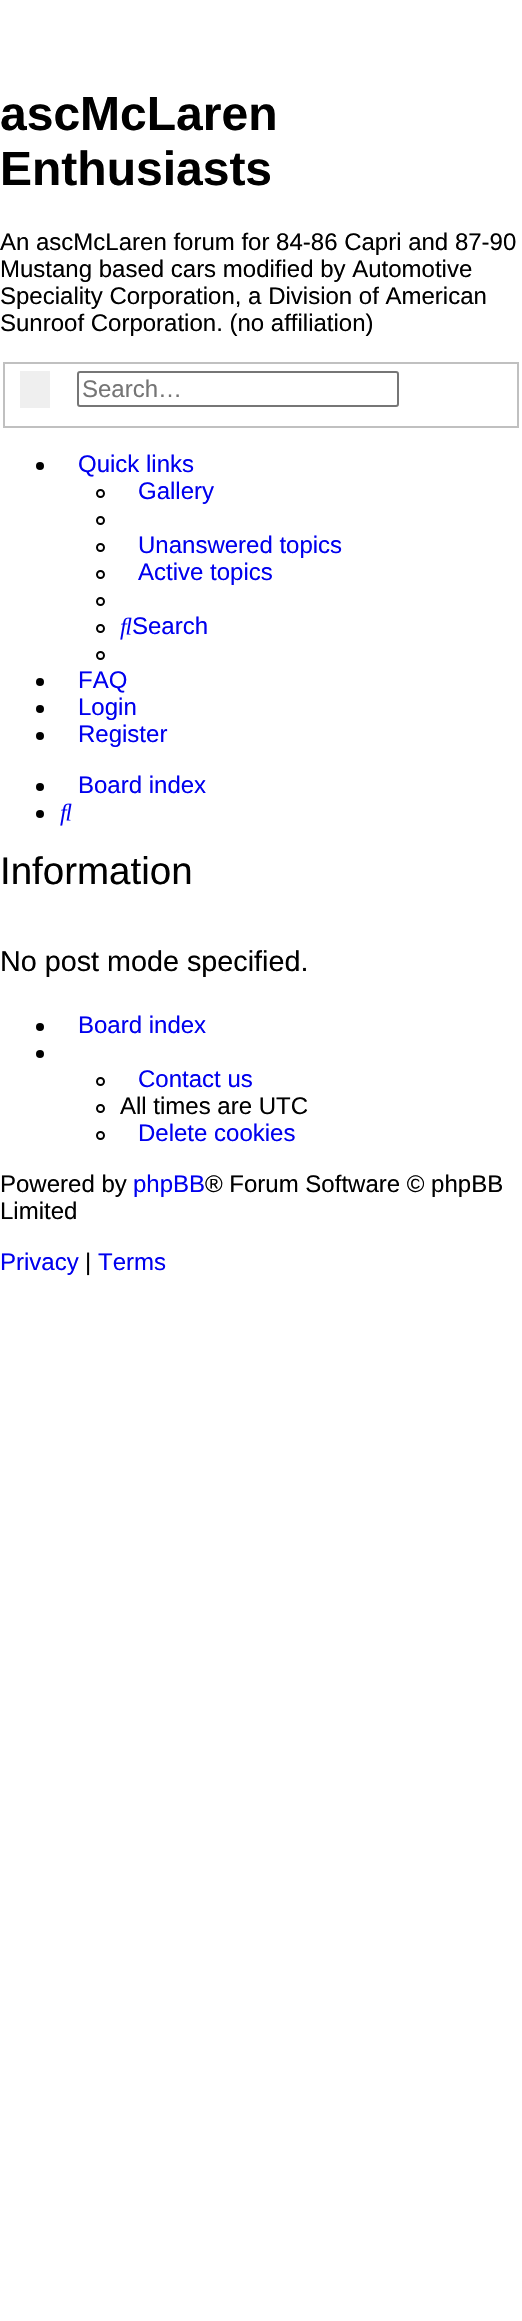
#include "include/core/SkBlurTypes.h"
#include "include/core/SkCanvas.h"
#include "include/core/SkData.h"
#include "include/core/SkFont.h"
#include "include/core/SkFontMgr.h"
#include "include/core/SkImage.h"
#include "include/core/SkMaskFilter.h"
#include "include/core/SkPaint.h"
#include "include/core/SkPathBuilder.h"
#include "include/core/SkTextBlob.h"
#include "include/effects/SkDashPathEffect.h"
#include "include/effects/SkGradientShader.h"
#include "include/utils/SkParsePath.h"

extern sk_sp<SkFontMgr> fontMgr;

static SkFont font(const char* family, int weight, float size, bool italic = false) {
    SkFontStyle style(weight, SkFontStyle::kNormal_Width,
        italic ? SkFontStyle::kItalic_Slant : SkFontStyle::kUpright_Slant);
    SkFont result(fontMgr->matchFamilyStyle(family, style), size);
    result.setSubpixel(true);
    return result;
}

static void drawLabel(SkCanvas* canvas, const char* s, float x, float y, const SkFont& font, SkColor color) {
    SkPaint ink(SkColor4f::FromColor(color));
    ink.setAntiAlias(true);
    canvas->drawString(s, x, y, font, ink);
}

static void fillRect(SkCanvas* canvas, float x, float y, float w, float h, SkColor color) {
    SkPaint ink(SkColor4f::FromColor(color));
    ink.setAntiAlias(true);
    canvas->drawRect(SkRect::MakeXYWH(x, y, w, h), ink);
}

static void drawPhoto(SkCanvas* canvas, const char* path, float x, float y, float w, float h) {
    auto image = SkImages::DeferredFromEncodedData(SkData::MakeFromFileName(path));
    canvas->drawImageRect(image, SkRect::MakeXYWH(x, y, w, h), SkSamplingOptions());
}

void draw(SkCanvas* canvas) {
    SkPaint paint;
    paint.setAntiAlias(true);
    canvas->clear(0xFFFFFFFF);
    SkFont font1 = font("Liberation Sans", 700, 48);
    drawLabel(canvas, "ascMcLaren", 0, 130, font1, 0xFF000000);
    drawLabel(canvas, "Enthusiasts", 0, 185, font1, 0xFF000000);
    SkFont font2 = font("Liberation Sans", 400, 24);
    drawLabel(canvas, "An ascMcLaren forum for 84-86 Capri and 87-90", 0, 250, font2, 0xFF000000);
    drawLabel(canvas, "Mustang based cars modified by Automotive", 0, 277, font2, 0xFF000000);
    drawLabel(canvas, "Speciality Corporation, a Division of American", 0, 304, font2, 0xFF000000);
    drawLabel(canvas, "Sunroof Corporation. (no affiliation)", 0, 331, font2, 0xFF000000);
    paint.setStroke(true);
    paint.setStrokeWidth(2);
    paint.setColor(0xFFC0C0C0);
    canvas->drawRect(SkRect::MakeXYWH(4, 363, 514, 64), paint);
    fillRect(canvas, 20, 371, 30, 37, 0xFFEFEFEF);
    paint.setColor(0xFF767676);
    canvas->drawRoundRect(SkRect::MakeXYWH(78, 372, 320, 34), 2, 2, paint);
    drawLabel(canvas, "Search…", 82, 397, font2, 0xFF757575);
    paint.setStroke(false);
    paint.setColor(0xFF000000);
    canvas->drawCircle(40, 466, 4, paint);
    drawLabel(canvas, "Quick links", 78, 472, font2, 0xFF0000EE);
    paint.setStroke(true);
    canvas->drawCircle(100.5f, 493.5f, 3.5f, paint);
    drawLabel(canvas, "Gallery", 138, 499, font2, 0xFF0000EE);
    canvas->drawCircle(100.5f, 520.5f, 3.5f, paint);
    canvas->drawCircle(100.5f, 547.5f, 3.5f, paint);
    drawLabel(canvas, "Unanswered topics", 138, 553, font2, 0xFF0000EE);
    canvas->drawCircle(100.5f, 574.5f, 3.5f, paint);
    drawLabel(canvas, "Active topics", 138, 580, font2, 0xFF0000EE);
    canvas->drawCircle(100.5f, 601.5f, 3.5f, paint);
    canvas->drawCircle(100.5f, 628.5f, 3.5f, paint);
    drawPhoto(canvas, "assets/img1.png", 120, 617, 12, 23);
    drawLabel(canvas, "Search", 132, 634, font2, 0xFF0000EE);
    canvas->drawCircle(100.5f, 655.5f, 3.5f, paint);
    paint.setStroke(false);
    canvas->drawCircle(40, 682, 4, paint);
    drawLabel(canvas, "FAQ", 78, 688, font2, 0xFF0000EE);
    canvas->drawCircle(40, 709, 4, paint);
    drawLabel(canvas, "Login", 78, 715, font2, 0xFF0000EE);
    canvas->drawCircle(40, 736, 4, paint);
    drawLabel(canvas, "Register", 78, 742, font2, 0xFF0000EE);
    canvas->drawCircle(40, 787, 4, paint);
    drawLabel(canvas, "Board index", 78, 793, font2, 0xFF0000EE);
    canvas->drawCircle(40, 814, 4, paint);
    drawPhoto(canvas, "assets/img1.png", 60, 803, 12, 23);
    SkFont font3 = font("Liberation Sans", 400, 38.5f);
    drawLabel(canvas, "Information", 0, 884, font3, 0xFF000000);
    SkFont font4 = font("Liberation Sans", 400, 28.75f);
    drawLabel(canvas, "No post mode specified.", 0, 971, font4, 0xFF000000);
    canvas->drawCircle(40, 1027, 4, paint);
    drawLabel(canvas, "Board index", 78, 1033, font2, 0xFF0000EE);
    canvas->drawCircle(40, 1054, 4, paint);
    paint.setStroke(true);
    canvas->drawCircle(100.5f, 1081.5f, 3.5f, paint);
    drawLabel(canvas, "Contact us", 138, 1087, font2, 0xFF0000EE);
    canvas->drawCircle(100.5f, 1108.5f, 3.5f, paint);
    drawLabel(canvas, "All times are UTC", 120, 1114, font2, 0xFF000000);
    canvas->drawCircle(100.5f, 1135.5f, 3.5f, paint);
    drawLabel(canvas, "Delete cookies", 138, 1141, font2, 0xFF0000EE);
    drawLabel(canvas, "Powered by", 0, 1192, font2, 0xFF000000);
    drawLabel(canvas, "phpBB", 133, 1192, font2, 0xFF0000EE);
    drawLabel(canvas, "® Forum Software © phpBB", 205, 1192, font2, 0xFF000000);
    drawLabel(canvas, "Limited", 0, 1219, font2, 0xFF000000);
    drawLabel(canvas, "Privacy", 0, 1270, font2, 0xFF0000EE);
    drawLabel(canvas, "|", 85, 1270, font2, 0xFF000000);
    drawLabel(canvas, "Terms", 98, 1270, font2, 0xFF0000EE);
}
